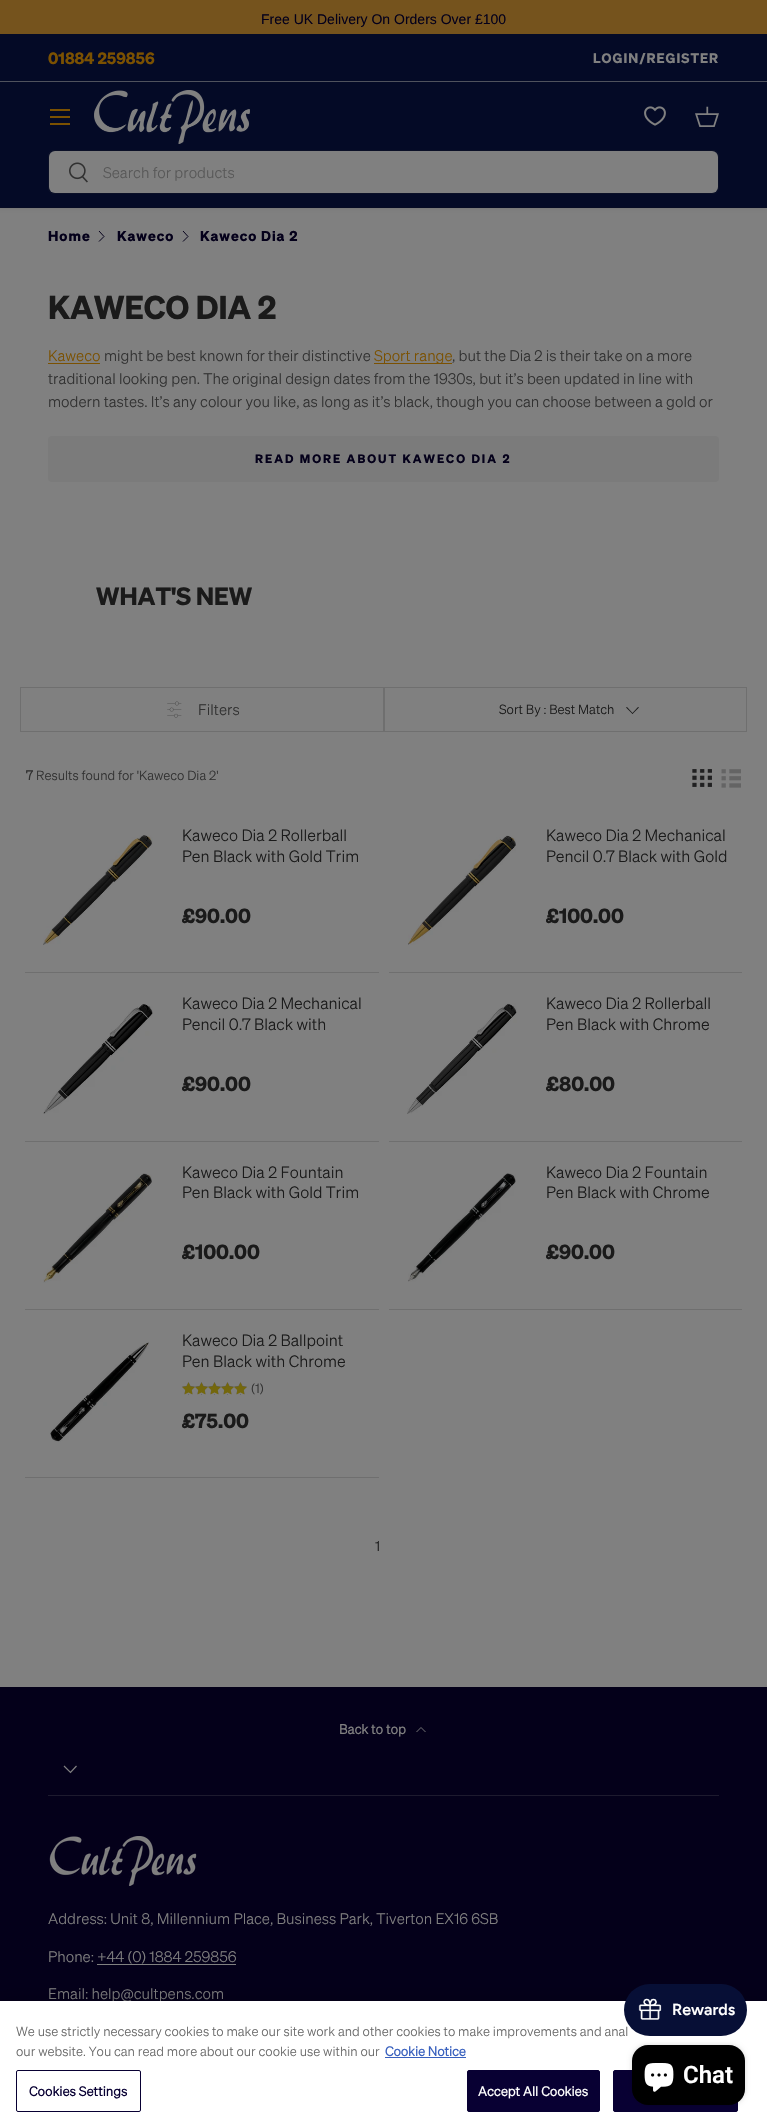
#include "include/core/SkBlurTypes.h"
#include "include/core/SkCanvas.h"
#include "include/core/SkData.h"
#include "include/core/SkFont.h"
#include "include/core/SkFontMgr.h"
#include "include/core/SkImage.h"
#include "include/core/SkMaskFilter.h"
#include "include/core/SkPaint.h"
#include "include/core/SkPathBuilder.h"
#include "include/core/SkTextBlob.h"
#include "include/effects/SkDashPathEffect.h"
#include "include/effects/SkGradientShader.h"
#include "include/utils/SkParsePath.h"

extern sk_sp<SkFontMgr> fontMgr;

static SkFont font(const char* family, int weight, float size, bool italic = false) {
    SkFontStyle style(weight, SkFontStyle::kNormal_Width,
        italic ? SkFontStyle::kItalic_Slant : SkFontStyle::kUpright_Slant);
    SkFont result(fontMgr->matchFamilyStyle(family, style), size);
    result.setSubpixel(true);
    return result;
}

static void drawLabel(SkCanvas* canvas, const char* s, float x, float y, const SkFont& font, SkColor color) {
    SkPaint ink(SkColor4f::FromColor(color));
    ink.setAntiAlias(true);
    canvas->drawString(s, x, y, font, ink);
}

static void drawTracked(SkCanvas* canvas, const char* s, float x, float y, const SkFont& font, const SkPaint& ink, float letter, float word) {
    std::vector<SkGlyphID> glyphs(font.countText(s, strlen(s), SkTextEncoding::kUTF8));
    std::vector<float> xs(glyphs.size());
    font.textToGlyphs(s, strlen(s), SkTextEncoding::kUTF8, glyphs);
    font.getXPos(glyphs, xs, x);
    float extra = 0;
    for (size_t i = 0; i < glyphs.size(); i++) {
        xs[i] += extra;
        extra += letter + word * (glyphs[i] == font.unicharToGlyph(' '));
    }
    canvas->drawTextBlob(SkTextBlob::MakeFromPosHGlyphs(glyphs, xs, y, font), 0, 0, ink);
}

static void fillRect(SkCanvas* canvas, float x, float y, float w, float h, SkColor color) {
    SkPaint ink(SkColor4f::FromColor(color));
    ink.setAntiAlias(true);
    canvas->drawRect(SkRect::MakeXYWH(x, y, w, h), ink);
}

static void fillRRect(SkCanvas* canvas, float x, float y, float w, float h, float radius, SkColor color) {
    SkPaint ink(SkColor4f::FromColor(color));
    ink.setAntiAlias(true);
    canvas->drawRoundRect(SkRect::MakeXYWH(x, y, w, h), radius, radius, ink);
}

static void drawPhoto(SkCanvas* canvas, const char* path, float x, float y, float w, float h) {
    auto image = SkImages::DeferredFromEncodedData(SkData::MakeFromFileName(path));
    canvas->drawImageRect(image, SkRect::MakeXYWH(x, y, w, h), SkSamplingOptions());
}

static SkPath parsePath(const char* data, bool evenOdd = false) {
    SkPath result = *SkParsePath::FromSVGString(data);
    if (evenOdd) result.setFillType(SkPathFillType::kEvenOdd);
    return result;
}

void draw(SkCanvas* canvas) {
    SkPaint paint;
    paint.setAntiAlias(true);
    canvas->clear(0xFF808080);
    fillRect(canvas, 0, 0, 767, 34, 0xFF75531D);
    SkFont font1 = font("Liberation Sans", 400, 14);
    drawLabel(canvas, "Free UK Delivery On Orders Over £100", 261, 24, font1, 0xFF04001A);
    paint.setColor(0x14000000);
    paint.setMaskFilter(SkMaskFilter::MakeBlur(kNormal_SkBlurStyle, 1.5f));
    canvas->drawRect(SkRect::MakeXYWH(-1, 81, 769, 128), paint);
    paint.setMaskFilter(nullptr);
    fillRect(canvas, 0, 34, 767, 47, 0xFF040A26);
    fillRect(canvas, 0, 81, 767, 1, 0xFF4F525D);
    SkFont font2 = font("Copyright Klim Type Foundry", 700, 16);
    drawLabel(canvas, "01884 259856", 48, 64, font2, 0xFF7B5101);
    SkFont font3 = font("Copyright Klim Type Foundry", 700, 13.5f);
    paint.setColor(0xFF808080);
    drawTracked(canvas, "LOGIN/REGISTER", 593, 63, font3, paint, 1, 0);
    fillRect(canvas, 0, 82, 767, 125, 0xFF040A26);
    fillRect(canvas, 50, 109, 20, 2, 0xFF7B5101);
    fillRect(canvas, 50, 123, 20, 2, 0xFF7B5101);
    fillRect(canvas, 50, 116, 20, 2, 0xFF7B5101);
    drawPhoto(canvas, "assets/img1.png", 94, 90, 156, 54);
    drawPhoto(canvas, "assets/img2.png", 644, 106, 22, 20);
    drawPhoto(canvas, "assets/img3.png", 695, 106, 24, 21);
    paint.setStroke(true);
    paint.setStrokeWidth(1);
    paint.setColor(0xFF0B1027);
    canvas->drawRoundRect(SkRect::MakeXYWH(48.5f, 150.5f, 670, 43), 5.5f, 5.5f, paint);
    fillRRect(canvas, 49, 151, 669, 42, 6, 0xFF808080);
    drawPhoto(canvas, "assets/img4.png", 69, 162, 19, 21);
    SkFont font4 = font("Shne", 300, 15);
    drawLabel(canvas, "Search for products", 103, 178, font4, 0xFF585858);
    fillRect(canvas, 0, 207, 767, 1, 0xFF060B23);
    SkFont font5 = font("Copyright Klim Type Foundry", 700, 14);
    paint.setStroke(false);
    paint.setColor(0xFF04001A);
    drawTracked(canvas, "Home", 48, 241, font5, paint, 1, 0);
    paint.setStroke(true);
    canvas->drawPath(parsePath("M99 231L104 236.5L99 241.5"), paint);
    paint.setStroke(false);
    drawTracked(canvas, "Kaweco", 117, 241, font5, paint, 1, 0);
    paint.setStroke(true);
    canvas->drawPath(parsePath("M183 231L188 236.5L183 241.5"), paint);
    paint.setStroke(false);
    drawTracked(canvas, "Kaweco Dia 2", 200, 241, font5, paint, 1, 0);
    SkFont font6 = font("Copyright Klim Type Foundry", 700, 32.25f);
    drawLabel(canvas, "KAWECO DIA 2", 48, 319, font6, 0xFF1A1A1A);
    drawLabel(canvas, "Kaweco", 48, 361, font4, 0xFF7B5101);
    fillRect(canvas, 48, 363, 52, 1, 0xFF7B5101);
    drawLabel(canvas, "might be best known for their distinctive", 104, 361, font4, 0xFF313131);
    fillRect(canvas, 374, 363, 78, 1, 0xFF7B5101);
    drawLabel(canvas, "Sport range", 374, 361, font4, 0xFF7B5101);
    drawLabel(canvas, ", but the Dia 2 is their take on a more", 452, 361, font4, 0xFF313131);
    drawLabel(canvas, "traditional looking pen. The original design dates from the 1930s, but it’s been updated in line with", 48, 384, font4, 0xFF313131);
    drawLabel(canvas, "modern tastes. It’s any colour you like, as long as it’s black, though you can choose between a gold or", 48, 407, font4, 0xFF313131);
    fillRRect(canvas, 48, 436, 671, 46, 4, 0xFF7B7B7B);
    SkFont font7 = font("Copyright Klim Type Foundry", 700, 12);
    drawTracked(canvas, "READ MORE ABOUT KAWECO DIA 2", 255, 463, font7, paint, 2, 0);
    SkFont font8 = font("Copyright Klim Type Foundry", 700, 24.5f);
    drawLabel(canvas, "WHAT'S NEW", 96, 605, font8, 0xFF1A1A1A);
    paint.setStroke(true);
    paint.setColor(0xFF6F6F6F);
    canvas->drawRect(SkRect::MakeXYWH(20.5f, 687.5f, 363, 44), paint);
    drawPhoto(canvas, "assets/img5.png", 167, 701, 15, 17);
    drawLabel(canvas, "Filters", 198, 715, font4, 0xFF313131);
    canvas->drawRect(SkRect::MakeXYWH(384.5f, 687.5f, 362, 44), paint);
    SkFont font9 = font("Shne", 300, 13);
    drawLabel(canvas, "Sort By : Best Match", 499, 714, font9, 0xFF1A1A1A);
    paint.setStroke(false);
    paint.setColor(0xFF1A1A1A);
    canvas->drawPath(parsePath("M638 707L639 707.5L632.5 714L632 713.5Z"), paint);
    canvas->drawPath(parsePath("M627 707L633 713.5L632.5 714L626 707.5Z"), paint);
    SkFont font10 = font("Shne", 700, 13);
    drawLabel(canvas, "7", 26, 780, font10, 0xFF313131);
    drawLabel(canvas, "Results found for 'Kaweco Dia 2'", 36, 780, font9, 0xFF313131);
    drawPhoto(canvas, "assets/img6.png", 692, 769, 20, 18);
    drawPhoto(canvas, "assets/img7.png", 721, 769, 20, 19);
    fillRect(canvas, 25, 972, 354, 1, 0xFF6F6F6F);
    drawPhoto(canvas, "assets/img8.png", 43, 835, 110, 110);
    SkFont font11 = font("Shne", 300, 16);
    drawLabel(canvas, "Kaweco Dia 2 Rollerball", 182, 841, font11, 0xFF1A1A1A);
    drawLabel(canvas, "Pen Black with Gold Trim", 182, 862, font11, 0xFF1A1A1A);
    SkFont font12 = font("Copyright Klim Type Foundry", 700, 20);
    drawLabel(canvas, "£90.00", 182, 923, font12, 0xFF1A1A1A);
    fillRect(canvas, 389, 972, 353, 1, 0xFF6F6F6F);
    drawPhoto(canvas, "assets/img9.png", 408, 835, 108, 110);
    drawLabel(canvas, "Kaweco Dia 2 Mechanical", 546, 841, font11, 0xFF1A1A1A);
    drawLabel(canvas, "Pencil 0.7 Black with Gold", 546, 862, font11, 0xFF1A1A1A);
    drawLabel(canvas, "£100.00", 546, 923, font12, 0xFF1A1A1A);
    fillRect(canvas, 25, 1141, 354, 1, 0xFF6F6F6F);
    drawPhoto(canvas, "assets/img10.png", 43, 1004, 110, 110);
    drawLabel(canvas, "Kaweco Dia 2 Mechanical", 182, 1009, font11, 0xFF1A1A1A);
    drawLabel(canvas, "Pencil 0.7 Black with", 182, 1030, font11, 0xFF1A1A1A);
    drawLabel(canvas, "£90.00", 182, 1091, font12, 0xFF1A1A1A);
    fillRect(canvas, 389, 1141, 353, 1, 0xFF6F6F6F);
    drawPhoto(canvas, "assets/img11.png", 407, 1003, 110, 111);
    drawLabel(canvas, "Kaweco Dia 2 Rollerball", 546, 1009, font11, 0xFF1A1A1A);
    drawLabel(canvas, "Pen Black with Chrome", 546, 1030, font11, 0xFF1A1A1A);
    drawLabel(canvas, "£80.00", 546, 1091, font12, 0xFF1A1A1A);
    fillRect(canvas, 25, 1309, 354, 1, 0xFF6F6F6F);
    drawPhoto(canvas, "assets/img12.png", 43, 1173, 109, 110);
    drawLabel(canvas, "Kaweco Dia 2 Fountain", 182, 1178, font11, 0xFF1A1A1A);
    drawLabel(canvas, "Pen Black with Gold Trim", 182, 1198, font11, 0xFF1A1A1A);
    drawLabel(canvas, "£100.00", 182, 1259, font12, 0xFF1A1A1A);
    fillRect(canvas, 389, 1309, 353, 1, 0xFF6F6F6F);
    drawPhoto(canvas, "assets/img13.png", 408, 1173, 108, 109);
    drawLabel(canvas, "Kaweco Dia 2 Fountain", 546, 1178, font11, 0xFF1A1A1A);
    drawLabel(canvas, "Pen Black with Chrome", 546, 1198, font11, 0xFF1A1A1A);
    drawLabel(canvas, "£90.00", 546, 1259, font12, 0xFF1A1A1A);
    fillRect(canvas, 25, 1477, 354, 1, 0xFF6F6F6F);
    drawPhoto(canvas, "assets/img14.png", 50, 1342, 99, 100);
    drawLabel(canvas, "Kaweco Dia 2 Ballpoint", 182, 1346, font11, 0xFF1A1A1A);
    drawLabel(canvas, "Pen Black with Chrome", 182, 1367, font11, 0xFF1A1A1A);
    drawPhoto(canvas, "assets/img15.png", 182, 1382, 65, 13);
    drawPhoto(canvas, "assets/img16.png", 182, 1382, 65, 13);
    drawLabel(canvas, "(1)", 251, 1393, font9, 0xFF313131);
    drawLabel(canvas, "£75.00", 182, 1428, font12, 0xFF1A1A1A);
    SkFont font13 = font("Shne", 300, 14);
    drawLabel(canvas, "1", 375, 1551, font13, 0xFF1A1A1A);
    fillRect(canvas, 0, 1687, 767, 314, 0xFF04001A);
    SkFont font14 = font("Shne", 700, 13.25f);
    drawLabel(canvas, "Back to top", 339, 1734, font14, 0xFF808080);
    paint.setStroke(true);
    paint.setStrokeWidth(0.9f);
    paint.setColor(0xFF808080);
    canvas->drawPath(parsePath("M416.5 1732L421 1727.5L425.5 1732"), paint);
    fillRect(canvas, 48, 1795, 671, 1, 0xFF1D1A2E);
    paint.setStrokeWidth(1.2f);
    canvas->drawPath(parsePath("M76.5 1766L70.5 1772.5L64 1766"), paint);
    drawPhoto(canvas, "assets/img17.png", 49, 1836, 148, 50);
    drawLabel(canvas, "Address: Unit 8, Millennium Place, Business Park, Tiverton EX16 6SB", 48, 1924, font4, 0xFF808080);
    drawLabel(canvas, "Phone: +44 (0) 1884 259856", 48, 1962, font4, 0xFF808080);
    fillRect(canvas, 97, 1964, 139, 1, 0xFF808080);
    drawLabel(canvas, "Email: help@cultpens.com", 48, 1999, font4, 0xFF808080);
    paint.setStroke(false);
    paint.setColor(0x33000000);
    paint.setMaskFilter(SkMaskFilter::MakeBlur(kNormal_SkBlurStyle, 9));
    canvas->drawRect(SkRect::MakeXYWH(0, 2001, 767, 125), paint);
    paint.setMaskFilter(nullptr);
    fillRect(canvas, 0, 2001, 767, 125, 0xFFFFFFFF);
    drawLabel(canvas, "We use strictly necessary cookies to make our site work and other cookies to make improvements and anal", 16, 2036, font9, 0xFF696969);
    fillRRect(canvas, 624, 1984, 123, 52, 26, 0xFF070F36);
    drawPhoto(canvas, "assets/img18.png", 638, 1998, 24, 22);
    SkFont font15 = font("Figtree", 600, 16);
    drawLabel(canvas, "Rewards", 672, 2015, font15, 0xFFFFFFFF);
    drawLabel(canvas, "our website. You can read more about our cookie use within our", 16, 2056, font9, 0xFF696969);
    drawLabel(canvas, "Cookie Notice", 385, 2056, font10, 0xFF3860BE);
    fillRect(canvas, 385, 2057, 81, 1, 0xFF3860BE);
    paint.setStroke(true);
    paint.setStrokeWidth(1);
    paint.setColor(0xFF080033);
    canvas->drawRoundRect(SkRect::MakeXYWH(16.5f, 2070.5f, 124, 41), 1.5f, 1.5f, paint);
    paint.setStroke(false);
    drawTracked(canvas, "Cookies Settings", 29, 2096, font10, paint, 0.1f, 0);
    canvas->drawRoundRect(SkRect::MakeXYWH(467.5f, 2070.5f, 132, 41), 1.5f, 1.5f, paint);
    paint.setStroke(true);
    canvas->drawRoundRect(SkRect::MakeXYWH(467.5f, 2070.5f, 132, 41), 1.5f, 1.5f, paint);
    paint.setStroke(false);
    paint.setColor(0xFFFFFFFF);
    drawTracked(canvas, "Accept All Cookies", 478, 2096, font10, paint, 0.1f, 0);
    paint.setColor(0xFF080033);
    canvas->drawRoundRect(SkRect::MakeXYWH(613.5f, 2070.5f, 124, 41), 1.5f, 1.5f, paint);
    paint.setStroke(true);
    canvas->drawRoundRect(SkRect::MakeXYWH(613.5f, 2070.5f, 124, 41), 1.5f, 1.5f, paint);
    paint.setStroke(false);
    paint.setColor(0x26000000);
    paint.setMaskFilter(SkMaskFilter::MakeBlur(kNormal_SkBlurStyle, 2.5f));
    canvas->drawRoundRect(SkRect::MakeXYWH(632, 2045, 113, 60), 16, 16, paint);
    paint.setMaskFilter(nullptr);
    fillRRect(canvas, 632, 2045, 113, 60, 16, 0xFF000000);
    drawPhoto(canvas, "assets/img19.png", 644, 2063, 30, 29);
    SkFont font16 = font("Roboto", 600, 24);
    drawLabel(canvas, "Chat", 683, 2083, font16, 0xFFFFFFFF);
}
